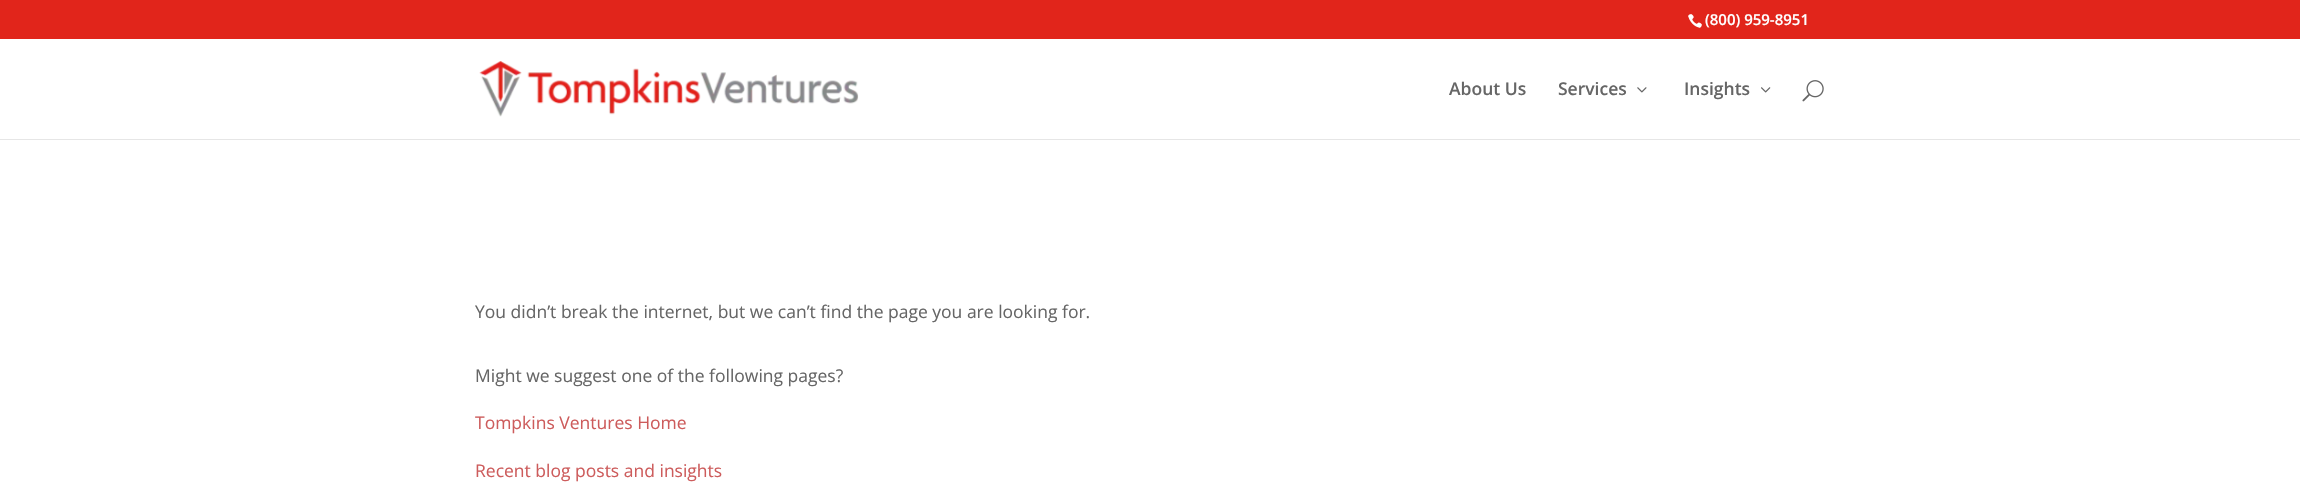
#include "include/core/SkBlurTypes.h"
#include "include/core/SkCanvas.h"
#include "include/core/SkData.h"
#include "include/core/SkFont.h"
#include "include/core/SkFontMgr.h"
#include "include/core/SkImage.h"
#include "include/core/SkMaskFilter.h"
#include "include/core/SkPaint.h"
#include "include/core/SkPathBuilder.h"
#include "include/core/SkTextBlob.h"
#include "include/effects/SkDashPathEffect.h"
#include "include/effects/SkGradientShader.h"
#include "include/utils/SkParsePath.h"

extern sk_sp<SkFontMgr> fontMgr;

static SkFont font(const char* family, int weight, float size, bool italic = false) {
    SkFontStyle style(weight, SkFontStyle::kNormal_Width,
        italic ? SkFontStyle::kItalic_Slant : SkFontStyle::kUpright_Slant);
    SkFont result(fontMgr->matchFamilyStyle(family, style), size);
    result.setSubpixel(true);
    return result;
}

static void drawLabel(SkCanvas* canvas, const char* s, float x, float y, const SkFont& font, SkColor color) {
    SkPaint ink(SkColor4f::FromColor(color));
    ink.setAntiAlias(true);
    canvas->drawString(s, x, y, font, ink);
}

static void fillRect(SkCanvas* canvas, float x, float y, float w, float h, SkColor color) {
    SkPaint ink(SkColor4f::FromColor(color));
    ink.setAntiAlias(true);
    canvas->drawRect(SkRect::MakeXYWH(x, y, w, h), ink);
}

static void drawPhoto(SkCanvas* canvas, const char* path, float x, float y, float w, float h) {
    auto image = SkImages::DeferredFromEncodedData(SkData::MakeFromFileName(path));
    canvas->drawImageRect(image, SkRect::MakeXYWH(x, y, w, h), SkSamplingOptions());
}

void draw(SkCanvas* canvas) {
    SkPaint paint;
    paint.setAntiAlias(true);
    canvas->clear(0xFFFFFFFF);
    fillRect(canvas, 0, 0, 2300, 39, 0xFFE1251B);
    drawPhoto(canvas, "assets/img1.png", 1688, 14, 14, 14);
    SkFont font1 = font("Open Sans", 600, 15);
    drawLabel(canvas, "(800) 959-8951", 1705, 25, font1, 0xFFFFFFFF);
    fillRect(canvas, 0, 139, 2300, 1, 0xFFE6E6E6);
    drawPhoto(canvas, "assets/img2.png", 479, 61, 380, 56);
    SkFont font2 = font("Open Sans", 600, 17.5f);
    drawLabel(canvas, "About Us", 1449, 95, font2, 0xFF666666);
    drawLabel(canvas, "Services", 1558, 95, font2, 0xFF666666);
    drawPhoto(canvas, "assets/img3.png", 1637, 87, 10, 6);
    drawLabel(canvas, "Insights", 1684, 95, font2, 0xFF666666);
    drawPhoto(canvas, "assets/img4.png", 1761, 87, 10, 6);
    drawPhoto(canvas, "assets/img5.png", 1802, 80, 22, 22);
    SkFont font3 = font("Open Sans", 400, 17.5f);
    drawLabel(canvas, "You didn’t break the internet, but we can’t find the page you are looking for.", 475, 318, font3, 0xFF666666);
    drawLabel(canvas, "Might we suggest one of the following pages?", 475, 382, font3, 0xFF666666);
    drawLabel(canvas, "Tompkins Ventures Home", 475, 429, font3, 0xFFCD5C5C);
    drawLabel(canvas, "Recent blog posts and insights", 475, 477, font3, 0xFFCD5C5C);
}
